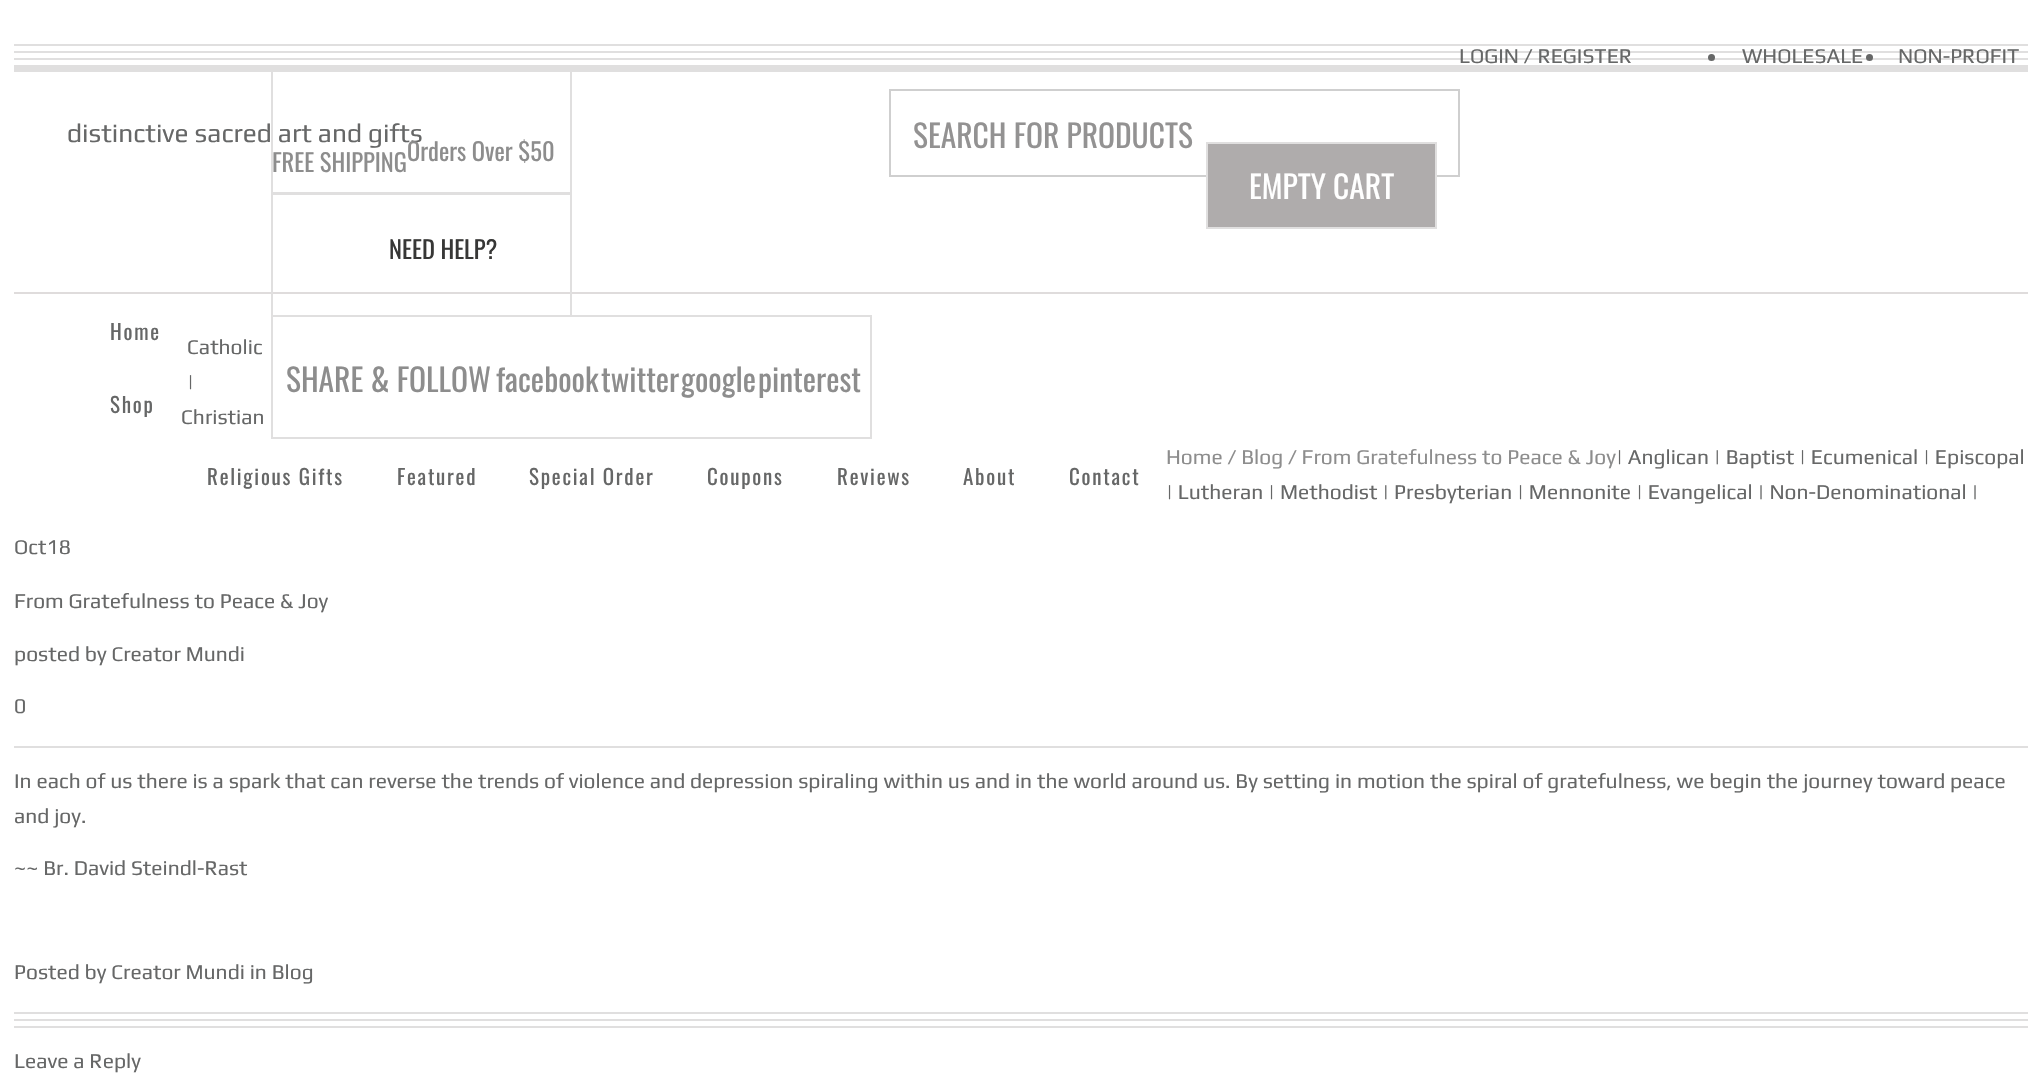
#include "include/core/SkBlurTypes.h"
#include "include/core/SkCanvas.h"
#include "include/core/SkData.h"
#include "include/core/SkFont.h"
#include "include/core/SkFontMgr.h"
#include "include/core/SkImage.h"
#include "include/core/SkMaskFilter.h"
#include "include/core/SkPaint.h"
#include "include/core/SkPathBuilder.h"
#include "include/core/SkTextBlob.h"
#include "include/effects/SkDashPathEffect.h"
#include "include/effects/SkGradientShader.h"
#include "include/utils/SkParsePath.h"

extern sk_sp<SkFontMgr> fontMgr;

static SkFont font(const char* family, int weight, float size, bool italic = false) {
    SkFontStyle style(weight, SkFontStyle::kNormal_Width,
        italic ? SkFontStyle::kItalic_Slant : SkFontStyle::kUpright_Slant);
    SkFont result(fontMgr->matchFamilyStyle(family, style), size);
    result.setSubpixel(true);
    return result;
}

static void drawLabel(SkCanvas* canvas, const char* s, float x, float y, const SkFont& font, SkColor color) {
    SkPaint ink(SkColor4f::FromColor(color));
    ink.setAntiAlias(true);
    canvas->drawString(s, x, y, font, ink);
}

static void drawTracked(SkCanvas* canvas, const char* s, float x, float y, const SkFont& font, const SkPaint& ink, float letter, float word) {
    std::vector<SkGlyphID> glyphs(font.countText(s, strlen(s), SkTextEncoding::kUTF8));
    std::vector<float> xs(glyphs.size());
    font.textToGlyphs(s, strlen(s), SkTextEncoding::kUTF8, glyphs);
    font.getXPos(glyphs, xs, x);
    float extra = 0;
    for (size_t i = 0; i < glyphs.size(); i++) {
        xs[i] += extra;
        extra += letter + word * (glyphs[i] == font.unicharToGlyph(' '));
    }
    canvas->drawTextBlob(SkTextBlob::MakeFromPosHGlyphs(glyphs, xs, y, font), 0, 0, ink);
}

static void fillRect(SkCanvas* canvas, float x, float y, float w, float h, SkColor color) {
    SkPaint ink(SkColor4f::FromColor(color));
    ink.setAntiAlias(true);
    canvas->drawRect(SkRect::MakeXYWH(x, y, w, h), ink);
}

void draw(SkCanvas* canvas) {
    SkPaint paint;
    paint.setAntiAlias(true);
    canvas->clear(0xFFFFFFFF);
    fillRect(canvas, 14, 44, 2014, 2, 0xFFE0DFDF);
    fillRect(canvas, 14, 51, 2014, 2, 0xFFE0DFDF);
    fillRect(canvas, 14, 58, 2014, 2, 0xFFE0DFDF);
    SkFont font1 = font("Play", 400, 21);
    drawLabel(canvas, "LOGIN / REGISTER", 1459, 63, font1, 0xFF666767);
    paint.setColor(0xFF666767);
    canvas->drawCircle(1711.5f, 57.5f, 3.5f, paint);
    drawLabel(canvas, "WHOLESALE", 1742, 63, font1, 0xFF666767);
    canvas->drawCircle(1869.5f, 57.5f, 3.5f, paint);
    drawLabel(canvas, "NON-PROFIT", 1898, 63, font1, 0xFF666767);
    fillRect(canvas, 14, 65, 2014, 7, 0xFFE0DFDF);
    paint.setStroke(true);
    paint.setStrokeWidth(2);
    paint.setColor(0xFFE0DFDF);
    canvas->drawRect(SkRect::MakeXYWH(272, 71, 299, 122), paint);
    SkFont font2 = font("Play", 400, 26.25f);
    drawLabel(canvas, "distinctive sacred art and gifts", 67, 142, font2, 0xFF666767);
    paint.setColor(0xFFCFCFCF);
    canvas->drawRect(SkRect::MakeXYWH(890, 90, 569, 86), paint);
    SkFont font3 = font("Oswald", 400, 31.5f);
    drawLabel(canvas, "SEARCH FOR PRODUCTS", 913, 148, font3, 0xFF939292);
    paint.setStroke(false);
    paint.setColor(0xFFAFACAC);
    canvas->drawRect(SkRect::MakeXYWH(1207, 143, 229, 85), paint);
    paint.setStroke(true);
    paint.setColor(0xFFE0DFDF);
    canvas->drawRect(SkRect::MakeXYWH(1207, 143, 229, 85), paint);
    drawLabel(canvas, "EMPTY CART", 1249, 199, font3, 0xFFFFFFFF);
    SkFont font4 = font("Oswald", 400, 24.5f);
    drawLabel(canvas, "FREE SHIPPING", 272, 172, font4, 0xFF8D8D8D);
    drawLabel(canvas, "Orders Over $50", 407, 161, font4, 0xFF8D8D8D);
    fillRect(canvas, 14, 292, 2014, 2, 0xFFDFDCDC);
    canvas->drawRect(SkRect::MakeXYWH(272, 194, 299, 122), paint);
    drawLabel(canvas, "NEED HELP?", 389, 259, font4, 0xFF373736);
    canvas->drawRect(SkRect::MakeXYWH(272, 316, 599, 122), paint);
    drawLabel(canvas, "SHARE & FOLLOW", 286, 392, font3, 0xFF8D8D8D);
    drawLabel(canvas, "facebook", 496, 392, font3, 0xFF8D8D8D);
    drawLabel(canvas, "twitter", 601, 392, font3, 0xFF8D8D8D);
    drawLabel(canvas, "google", 681, 392, font3, 0xFF8D8D8D);
    drawLabel(canvas, "pinterest", 758, 392, font3, 0xFF8D8D8D);
    SkFont font5 = font("Oswald", 400, 21);
    paint.setStroke(false);
    paint.setColor(0xFF666767);
    drawTracked(canvas, "Home", 110, 340, font5, paint, 1.75f, 0);
    drawTracked(canvas, "Shop", 110, 413, font5, paint, 1.75f, 0);
    drawTracked(canvas, "Religious Gifts", 207, 485, font5, paint, 1.75f, 0);
    drawTracked(canvas, "Featured", 397, 485, font5, paint, 1.75f, 0);
    drawTracked(canvas, "Special Order", 529, 485, font5, paint, 1.75f, 0);
    drawTracked(canvas, "Coupons", 707, 485, font5, paint, 1.75f, 0);
    drawTracked(canvas, "Reviews", 837, 485, font5, paint, 1.75f, 0);
    drawTracked(canvas, "About", 963, 485, font5, paint, 1.75f, 0);
    drawTracked(canvas, "Contact", 1069, 485, font5, paint, 1.75f, 0);
    drawLabel(canvas, "Catholic", 187, 354, font1, 0xFF666767);
    drawLabel(canvas, "|", 187, 389, font1, 0xFF666767);
    drawLabel(canvas, "Christian", 181, 424, font1, 0xFF666767);
    drawLabel(canvas, "| Anglican | Baptist | Ecumenical | Episcopal", 1616, 464, font1, 0xFF666767);
    drawLabel(canvas, "| Lutheran | Methodist | Presbyterian | Mennonite | Evangelical | Non-Denominational |", 1166, 499, font1, 0xFF666767);
    drawLabel(canvas, "Home / Blog / From Gratefulness to Peace & Joy", 1166, 464, font1, 0xFF8D8D8D);
    drawLabel(canvas, "Oct18", 14, 554, font1, 0xFF666767);
    drawLabel(canvas, "From Gratefulness to Peace & Joy", 14, 608, font1, 0xFF666767);
    drawLabel(canvas, "posted by Creator Mundi", 14, 661, font1, 0xFF666767);
    drawLabel(canvas, "0", 14, 713, font1, 0xFF666767);
    fillRect(canvas, 14, 746, 2014, 2, 0xFFE0DFDF);
    drawLabel(canvas, "In each of us there is a spark that can reverse the trends of violence and depression spiraling within us and in the world around us. By setting in motion the spiral of gratefulness, we begin the journey toward peace", 14, 788, font1, 0xFF666767);
    drawLabel(canvas, "and joy.", 14, 823, font1, 0xFF666767);
    drawLabel(canvas, "~~ Br. David Steindl-Rast", 14, 875, font1, 0xFF666767);
    drawLabel(canvas, "Posted by Creator Mundi in Blog", 14, 979, font1, 0xFF666767);
    fillRect(canvas, 14, 1012, 2014, 2, 0xFFE0DFDF);
    fillRect(canvas, 14, 1019, 2014, 2, 0xFFE0DFDF);
    fillRect(canvas, 14, 1026, 2014, 2, 0xFFE0DFDF);
    drawLabel(canvas, "Leave a Reply", 14, 1068, font1, 0xFF666767);
}
